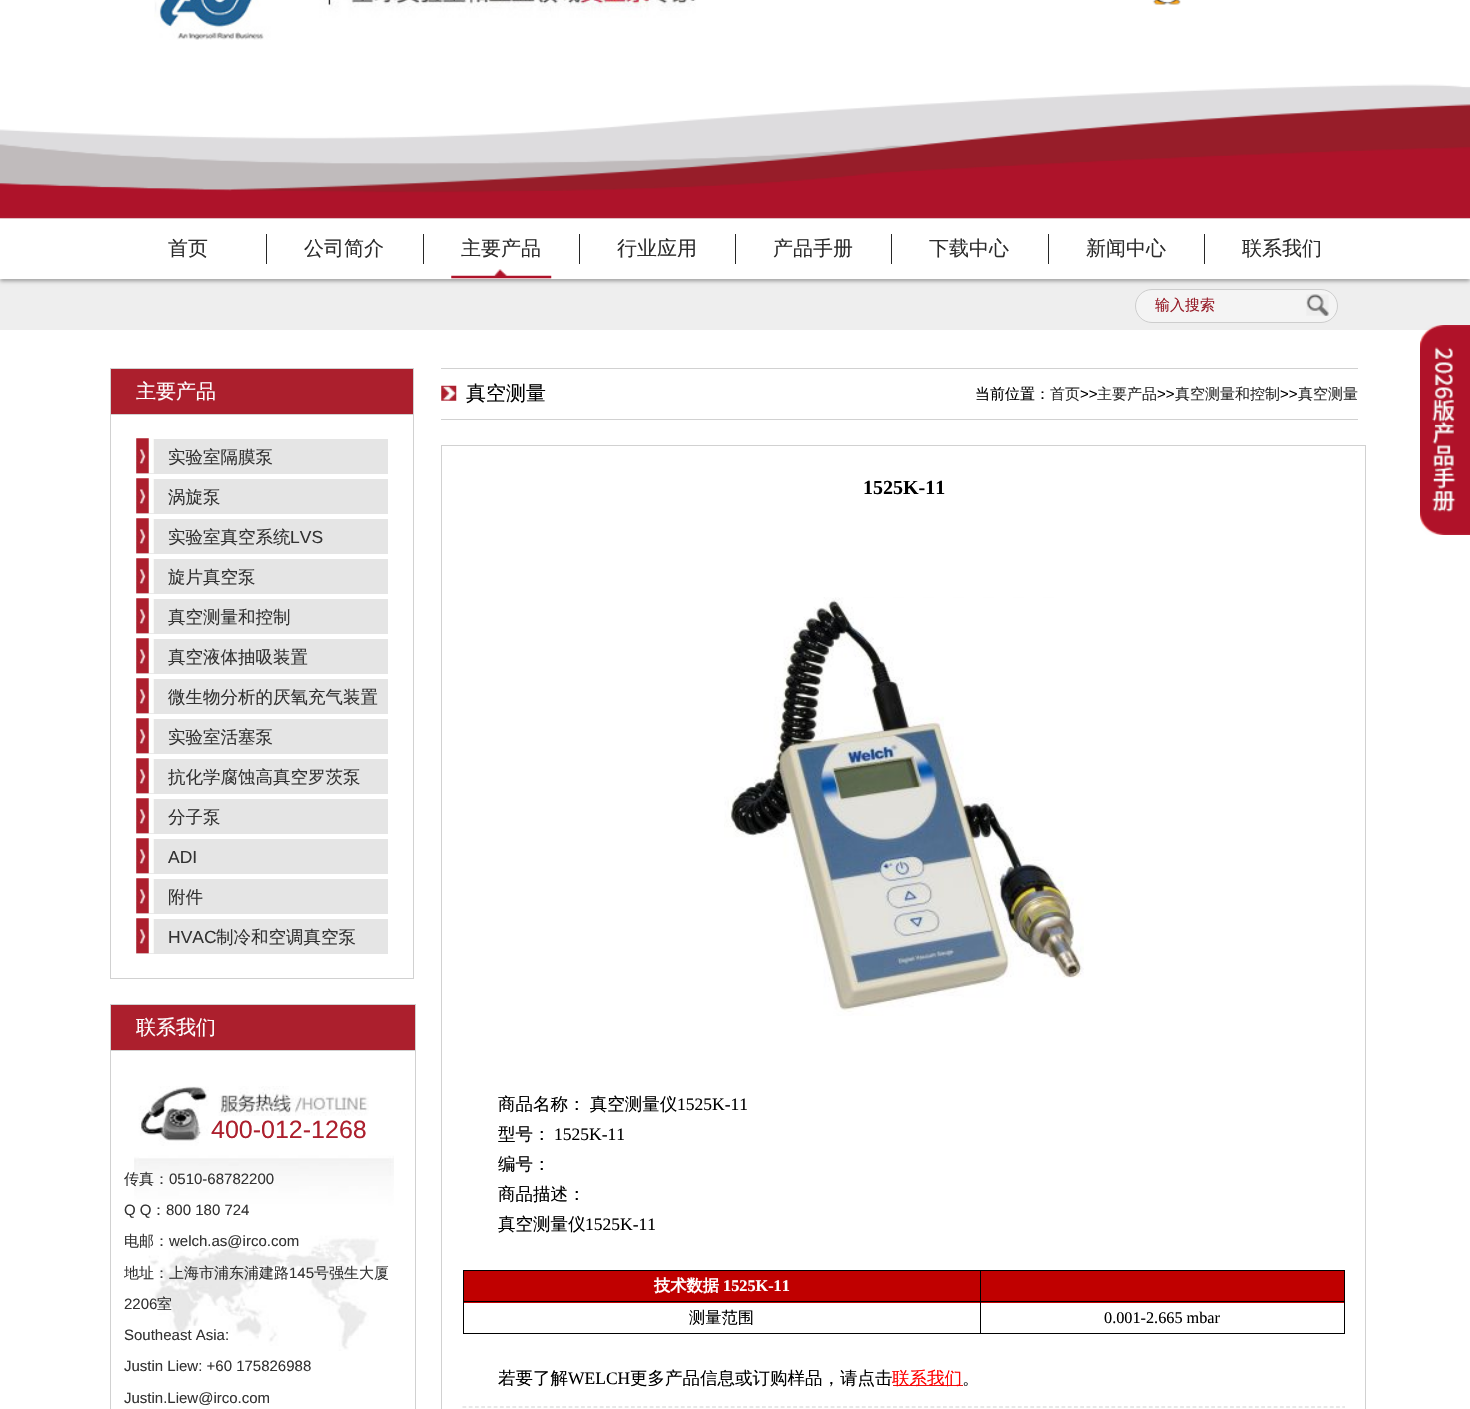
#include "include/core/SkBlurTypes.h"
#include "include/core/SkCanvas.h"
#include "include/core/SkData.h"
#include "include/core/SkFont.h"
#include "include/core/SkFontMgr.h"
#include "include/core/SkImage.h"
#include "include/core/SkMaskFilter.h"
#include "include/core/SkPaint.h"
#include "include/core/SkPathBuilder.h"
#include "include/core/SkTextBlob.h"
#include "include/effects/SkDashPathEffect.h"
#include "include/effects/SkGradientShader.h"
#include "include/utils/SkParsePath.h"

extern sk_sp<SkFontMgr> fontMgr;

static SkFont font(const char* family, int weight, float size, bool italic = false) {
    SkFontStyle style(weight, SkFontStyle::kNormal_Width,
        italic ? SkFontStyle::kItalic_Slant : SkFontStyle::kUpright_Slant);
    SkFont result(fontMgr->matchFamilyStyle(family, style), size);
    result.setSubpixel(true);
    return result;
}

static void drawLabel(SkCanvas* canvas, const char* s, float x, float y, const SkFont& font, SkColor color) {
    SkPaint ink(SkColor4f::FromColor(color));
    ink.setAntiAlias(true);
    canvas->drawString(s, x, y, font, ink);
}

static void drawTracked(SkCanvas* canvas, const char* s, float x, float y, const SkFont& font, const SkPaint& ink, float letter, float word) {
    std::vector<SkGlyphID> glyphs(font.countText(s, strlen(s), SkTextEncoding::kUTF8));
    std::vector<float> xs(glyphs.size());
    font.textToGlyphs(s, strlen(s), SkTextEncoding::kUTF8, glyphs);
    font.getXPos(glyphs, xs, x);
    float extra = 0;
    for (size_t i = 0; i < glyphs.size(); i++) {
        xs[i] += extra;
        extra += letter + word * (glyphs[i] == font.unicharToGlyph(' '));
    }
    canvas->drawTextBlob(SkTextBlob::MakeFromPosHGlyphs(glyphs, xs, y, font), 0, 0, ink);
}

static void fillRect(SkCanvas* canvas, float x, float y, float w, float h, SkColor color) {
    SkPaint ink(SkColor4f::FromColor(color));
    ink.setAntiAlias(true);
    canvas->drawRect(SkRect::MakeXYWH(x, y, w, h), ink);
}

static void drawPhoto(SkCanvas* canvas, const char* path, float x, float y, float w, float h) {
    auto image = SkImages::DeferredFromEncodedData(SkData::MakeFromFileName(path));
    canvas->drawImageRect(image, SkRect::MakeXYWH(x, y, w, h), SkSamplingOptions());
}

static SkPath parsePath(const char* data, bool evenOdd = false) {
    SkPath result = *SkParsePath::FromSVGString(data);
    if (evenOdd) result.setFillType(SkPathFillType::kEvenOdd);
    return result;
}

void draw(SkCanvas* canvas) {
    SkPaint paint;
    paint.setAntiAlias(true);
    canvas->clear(0xFFFFFFFF);
    drawPhoto(canvas, "assets/img1.png", 0, 84, 1470, 135);
    drawPhoto(canvas, "assets/img2.png", 154, 0, 542, 40);
    drawPhoto(canvas, "assets/img3.png", 1152, 0, 29, 5);
    fillRect(canvas, 0, 280, 1470, 50, 0xFFEEEEEE);
    paint.setColor(0xFF999999);
    paint.setMaskFilter(SkMaskFilter::MakeBlur(kNormal_SkBlurStyle, 2));
    canvas->drawRect(SkRect::MakeXYWH(0, 221, 1470, 60), paint);
    paint.setMaskFilter(nullptr);
    fillRect(canvas, 0, 219, 1470, 60, 0xFFFFFFFF);
    fillRect(canvas, 266, 234, 1, 30, 0xFF272727);
    SkFont font1 = font("WenQuanYi Zen Hei", 500, 20);
    drawLabel(canvas, "首页", 168, 255, font1, 0xFF2C2C2C);
    fillRect(canvas, 423, 234, 1, 30, 0xFF272727);
    drawLabel(canvas, "公司简介", 304, 255, font1, 0xFF2C2C2C);
    drawPhoto(canvas, "assets/img4.png", 451, 269, 101, 10);
    fillRect(canvas, 579, 234, 1, 30, 0xFF272727);
    drawLabel(canvas, "主要产品", 461, 255, font1, 0xFF2C2C2C);
    fillRect(canvas, 735, 234, 1, 30, 0xFF272727);
    drawLabel(canvas, "行业应用", 617, 255, font1, 0xFF2C2C2C);
    fillRect(canvas, 891, 234, 1, 30, 0xFF272727);
    drawLabel(canvas, "产品手册", 773, 255, font1, 0xFF2C2C2C);
    fillRect(canvas, 1048, 234, 1, 30, 0xFF272727);
    drawLabel(canvas, "下载中心", 929, 255, font1, 0xFF2C2C2C);
    fillRect(canvas, 1204, 234, 1, 30, 0xFF272727);
    drawLabel(canvas, "新闻中心", 1086, 255, font1, 0xFF2C2C2C);
    drawLabel(canvas, "联系我们", 1242, 255, font1, 0xFF2C2C2C);
    paint.setColor(0xFFF4F4F4);
    canvas->drawRoundRect(SkRect::MakeXYWH(1135.5f, 289.5f, 202, 33), 16.5f, 16.5f, paint);
    paint.setStroke(true);
    paint.setStrokeWidth(1);
    paint.setColor(0xFFCDCDCD);
    canvas->drawRoundRect(SkRect::MakeXYWH(1135.5f, 289.5f, 202, 33), 16.5f, 16.5f, paint);
    SkFont font2 = font("WenQuanYi Zen Hei", 500, 15);
    drawLabel(canvas, "输入搜索", 1155, 310, font2, 0xFF971D29);
    drawPhoto(canvas, "assets/img5.png", 1306, 294, 23, 22);
    paint.setColor(0xFFD1D1D1);
    canvas->drawRect(SkRect::MakeXYWH(110.5f, 368.5f, 303, 610), paint);
    fillRect(canvas, 111, 369, 302, 45, 0xFFAC1F2D);
    fillRect(canvas, 111, 414, 302, 1, 0xFFD1D1D1);
    drawLabel(canvas, "主要产品", 136, 398, font1, 0xFFFFFFFF);
    fillRect(canvas, 136, 439, 252, 35, 0xFFE5E5E5);
    drawPhoto(canvas, "assets/img6.png", 136, 438, 18, 36);
    SkFont font3 = font("WenQuanYi Zen Hei", 500, 17.5f);
    drawLabel(canvas, "实验室隔膜泵", 168, 463, font3, 0xFF333333);
    fillRect(canvas, 136, 479, 252, 35, 0xFFE5E5E5);
    drawPhoto(canvas, "assets/img7.png", 136, 478, 18, 36);
    drawLabel(canvas, "涡旋泵", 168, 503, font3, 0xFF333333);
    fillRect(canvas, 136, 519, 252, 35, 0xFFE5E5E5);
    drawPhoto(canvas, "assets/img7.png", 136, 518, 18, 36);
    drawLabel(canvas, "实验室真空系统", 168, 543, font3, 0xFF333333);
    SkFont font4 = font("Liberation Sans", 400, 17.5f);
    drawLabel(canvas, "LVS", 290, 543, font4, 0xFF333333);
    fillRect(canvas, 136, 559, 252, 35, 0xFFE5E5E5);
    drawPhoto(canvas, "assets/img7.png", 136, 558, 18, 36);
    drawLabel(canvas, "旋片真空泵", 168, 583, font3, 0xFF333333);
    fillRect(canvas, 136, 599, 252, 35, 0xFFE5E5E5);
    drawPhoto(canvas, "assets/img7.png", 136, 598, 18, 36);
    drawLabel(canvas, "真空测量和控制", 168, 623, font3, 0xFF333333);
    fillRect(canvas, 136, 639, 252, 35, 0xFFE5E5E5);
    drawPhoto(canvas, "assets/img8.png", 136, 638, 18, 36);
    drawLabel(canvas, "真空液体抽吸装置", 168, 663, font3, 0xFF333333);
    fillRect(canvas, 136, 679, 252, 35, 0xFFE5E5E5);
    drawPhoto(canvas, "assets/img7.png", 136, 678, 18, 36);
    drawLabel(canvas, "微生物分析的厌氧充气装置", 168, 703, font3, 0xFF333333);
    fillRect(canvas, 136, 719, 252, 35, 0xFFE5E5E5);
    drawPhoto(canvas, "assets/img7.png", 136, 718, 18, 36);
    drawLabel(canvas, "实验室活塞泵", 168, 743, font3, 0xFF333333);
    fillRect(canvas, 136, 759, 252, 35, 0xFFE5E5E5);
    drawPhoto(canvas, "assets/img7.png", 136, 758, 18, 36);
    drawLabel(canvas, "抗化学腐蚀高真空罗茨泵", 168, 783, font3, 0xFF333333);
    fillRect(canvas, 136, 799, 252, 35, 0xFFE5E5E5);
    drawPhoto(canvas, "assets/img7.png", 136, 798, 18, 36);
    drawLabel(canvas, "分子泵", 168, 823, font3, 0xFF333333);
    fillRect(canvas, 136, 839, 252, 35, 0xFFE5E5E5);
    drawPhoto(canvas, "assets/img7.png", 136, 838, 18, 36);
    drawLabel(canvas, "ADI", 168, 863, font4, 0xFF333333);
    fillRect(canvas, 136, 879, 252, 35, 0xFFE5E5E5);
    drawPhoto(canvas, "assets/img7.png", 136, 878, 18, 36);
    drawLabel(canvas, "附件", 168, 903, font3, 0xFF333333);
    fillRect(canvas, 136, 919, 252, 35, 0xFFE5E5E5);
    drawPhoto(canvas, "assets/img7.png", 136, 918, 18, 36);
    drawLabel(canvas, "HVAC", 168, 943, font4, 0xFF333333);
    drawLabel(canvas, "制冷和空调真空泵", 216, 943, font3, 0xFF333333);
    canvas->drawRect(SkRect::MakeXYWH(110.5f, 1004.5f, 305, 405), paint);
    fillRect(canvas, 111, 1005, 304, 45, 0xFFAC1F2D);
    fillRect(canvas, 111, 1050, 304, 1, 0xFFD1D1D1);
    drawLabel(canvas, "联系我们", 136, 1034, font1, 0xFFFFFFFF);
    drawPhoto(canvas, "assets/img9.png", 134, 1086, 260, 265);
    SkFont font5 = font("Liberation Sans", 400, 25);
    drawLabel(canvas, "400-012-1268", 211, 1138, font5, 0xFFAC1F2D);
    drawLabel(canvas, "传真：", 124, 1184, font2, 0xFF333333);
    SkFont font6 = font("Liberation Sans", 400, 15);
    drawLabel(canvas, "0510-68782200", 169, 1184, font6, 0xFF333333);
    drawLabel(canvas, "Q Q", 124, 1215, font6, 0xFF333333);
    drawLabel(canvas, "：", 151, 1215, font2, 0xFF333333);
    drawLabel(canvas, "800 180 724", 166, 1215, font6, 0xFF333333);
    drawLabel(canvas, "电邮：", 124, 1246, font2, 0xFF333333);
    drawLabel(canvas, "welch.as@irco.com", 169, 1246, font6, 0xFF333333);
    drawLabel(canvas, "地址：上海市浦东浦建路", 124, 1278, font2, 0xFF333333);
    drawLabel(canvas, "145", 289, 1278, font6, 0xFF333333);
    drawLabel(canvas, "号强生大厦", 314, 1278, font2, 0xFF333333);
    drawLabel(canvas, "2206", 124, 1309, font6, 0xFF333333);
    drawLabel(canvas, "室", 157, 1309, font2, 0xFF333333);
    drawLabel(canvas, "Southeast Asia:", 124, 1340, font6, 0xFF333333);
    drawLabel(canvas, "Justin Liew: +60 175826988", 124, 1371, font6, 0xFF333333);
    drawLabel(canvas, "Justin.Liew@irco.com", 124, 1403, font6, 0xFF333333);
    drawPhoto(canvas, "assets/img10.png", 441, 385, 16, 16);
    fillRect(canvas, 441, 368, 917, 1, 0xFFD1D1D1);
    fillRect(canvas, 441, 419, 917, 1, 0xFFD1D1D1);
    drawLabel(canvas, "真空测量", 466, 400, font1, 0xFF000000);
    drawLabel(canvas, "当前位置：", 975, 399, font2, 0xFF000000);
    drawLabel(canvas, "首页", 1050, 399, font2, 0xFF2C2C2C);
    drawLabel(canvas, ">>", 1080, 399, font6, 0xFF000000);
    drawLabel(canvas, "主要产品", 1097, 399, font2, 0xFF2C2C2C);
    drawLabel(canvas, ">>", 1157, 399, font6, 0xFF000000);
    drawLabel(canvas, "真空测量和控制", 1175, 399, font2, 0xFF2C2C2C);
    drawLabel(canvas, ">>", 1280, 399, font6, 0xFF000000);
    drawLabel(canvas, "真空测量", 1298, 399, font2, 0xFF2C2C2C);
    canvas->drawRect(SkRect::MakeXYWH(441.5f, 445.5f, 924, 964), paint);
    SkFont font7 = font("Liberation Serif", 700, 20);
    drawLabel(canvas, "1525K-11", 863, 494, font7, 0xFF000000);
    drawPhoto(canvas, "assets/img11.png", 724, 597, 360, 419);
    paint.setStroke(false);
    paint.setColor(0xFF000000);
    drawTracked(canvas, "商品名称： 真空测量仪", 498, 1110, font3, paint, 0, -1);
    SkFont font8 = font("Liberation Serif", 400, 17.5f);
    drawLabel(canvas, "1525K-11", 677, 1110, font8, 0xFF000000);
    drawLabel(canvas, "型号：", 498, 1140, font3, 0xFF000000);
    drawLabel(canvas, "1525K-11", 554, 1140, font8, 0xFF000000);
    drawLabel(canvas, "编号：", 498, 1170, font3, 0xFF000000);
    drawLabel(canvas, "商品描述：", 498, 1200, font3, 0xFF000000);
    drawLabel(canvas, "真空测量仪", 498, 1230, font3, 0xFF000000);
    drawLabel(canvas, "1525K-11", 585, 1230, font8, 0xFF000000);
    fillRect(canvas, 464, 1271, 516, 32, 0xFFC00000);
    fillRect(canvas, 980, 1270, 365, 1, 0xFF000000);
    fillRect(canvas, 981, 1271, 363, 32, 0xFFC00000);
    fillRect(canvas, 980, 1301, 365, 1, 0xFF000000);
    fillRect(canvas, 1344, 1301, 1, 33, 0xFF000000);
    fillRect(canvas, 980, 1333, 365, 1, 0xFF000000);
    fillRect(canvas, 980, 1301, 1, 33, 0xFF000000);
    fillRect(canvas, 463, 1301, 518, 1, 0xFF000000);
    fillRect(canvas, 980, 1270, 1, 33, 0xFF000000);
    fillRect(canvas, 463, 1270, 518, 1, 0xFF000000);
    fillRect(canvas, 463, 1333, 518, 1, 0xFF000000);
    fillRect(canvas, 463, 1301, 1, 33, 0xFF000000);
    fillRect(canvas, 463, 1270, 1, 33, 0xFF000000);
    SkFont font9 = font("WenQuanYi Zen Hei", 700, 16.25f);
    drawLabel(canvas, "技术数据", 654, 1291, font9, 0xFFFFFFFF);
    SkFont font10 = font("Liberation Serif", 700, 16.25f);
    drawLabel(canvas, "1525K-11", 723, 1291, font10, 0xFFFFFFFF);
    fillRect(canvas, 1344, 1270, 1, 33, 0xFF000000);
    SkFont font11 = font("WenQuanYi Zen Hei", 500, 16.25f);
    drawLabel(canvas, "测量范围", 689, 1323, font11, 0xFF000000);
    SkFont font12 = font("Liberation Serif", 400, 16.25f);
    drawLabel(canvas, "0.001-2.665 mbar", 1104, 1323, font12, 0xFF000000);
    drawLabel(canvas, "若要了解", 498, 1384, font3, 0xFF000000);
    drawLabel(canvas, "WELCH", 568, 1384, font8, 0xFF000000);
    drawLabel(canvas, "更多产品信息或订购样品，请点击", 630, 1384, font3, 0xFF000000);
    fillRect(canvas, 893, 1385, 70, 1, 0xFFEC1313);
    drawLabel(canvas, "联系我们", 892, 1384, font3, 0xFFFF0000);
    drawLabel(canvas, "。", 962, 1384, font3, 0xFF000000);
    paint.setStroke(true);
    paint.setStrokeWidth(1.2f);
    paint.setColor(0xFFD1D1D1);
    paint.setPathEffect(SkDashPathEffect::Make({{3.75f, 2.49f}}, 0));
    canvas->drawPath(parsePath("M462.5 1407H1345"), paint);
    paint.setPathEffect(nullptr);
    canvas->save();
    canvas->clipRect(SkRect::MakeXYWH(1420, 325, 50, 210));
    paint.setStroke(false);
    paint.setColor(0xFFE4E8EC);
    paint.setMaskFilter(SkMaskFilter::MakeBlur(kNormal_SkBlurStyle, 3));
    canvas->drawRoundRect(SkRect::MakeXYWH(1420, 325, 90, 210), 31, 31, paint);
    paint.setMaskFilter(nullptr);
    canvas->restore();
    drawPhoto(canvas, "assets/img12.png", 1420, 325, 50, 210);
}
